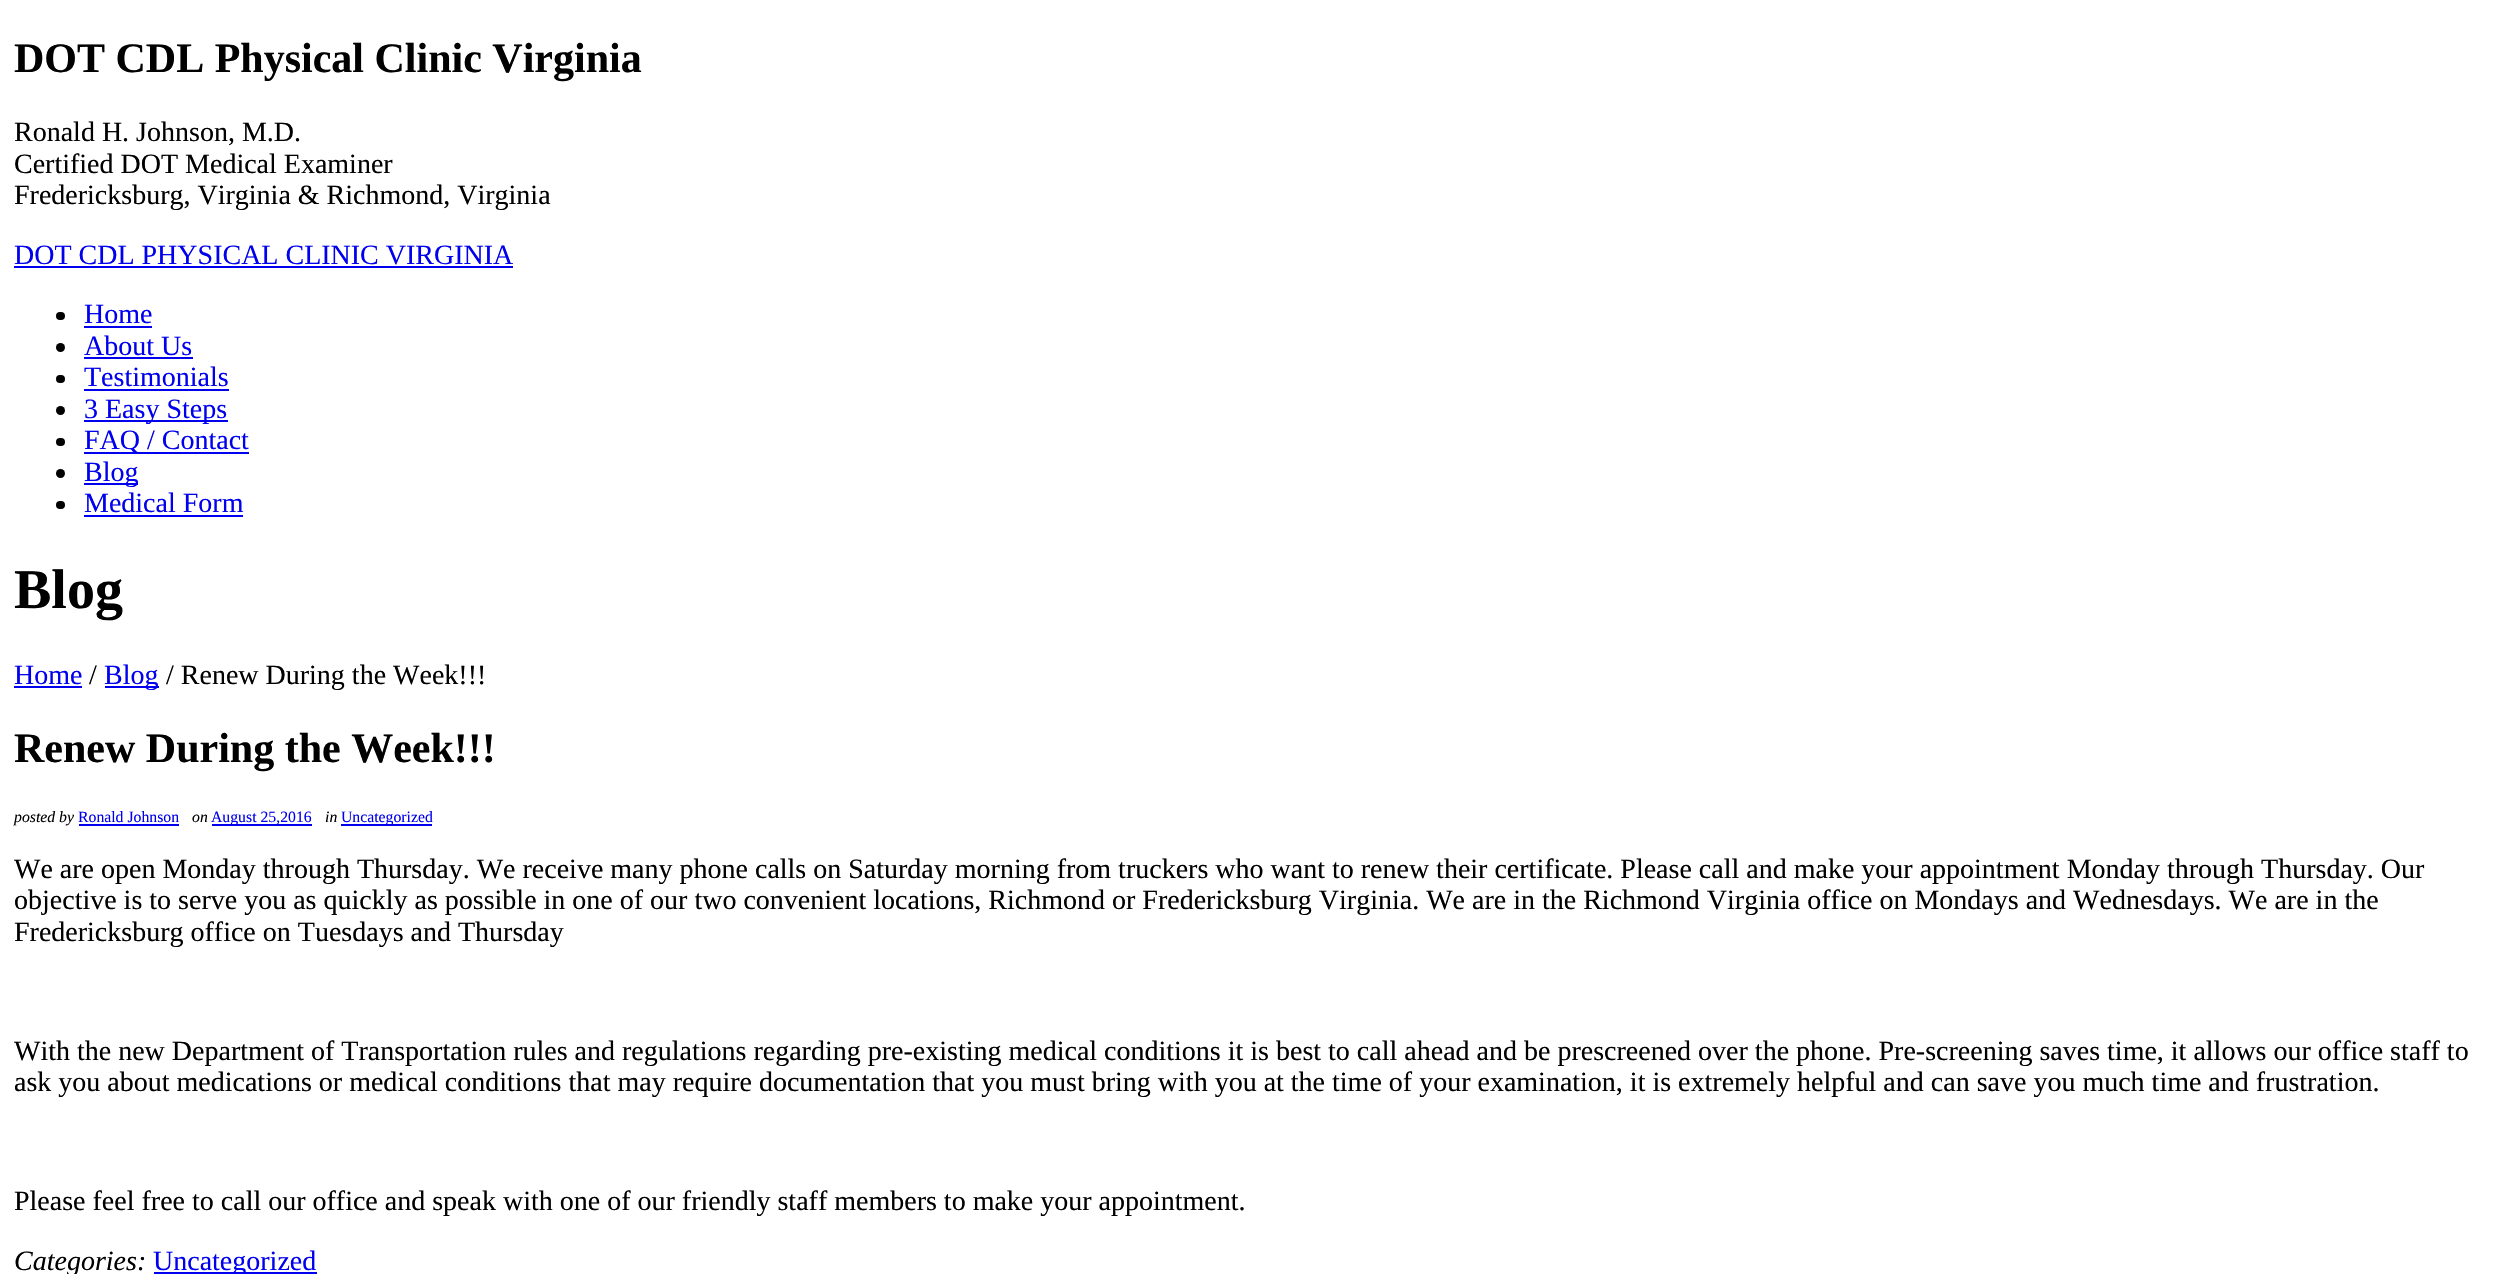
#include "include/core/SkBlurTypes.h"
#include "include/core/SkCanvas.h"
#include "include/core/SkData.h"
#include "include/core/SkFont.h"
#include "include/core/SkFontMgr.h"
#include "include/core/SkImage.h"
#include "include/core/SkMaskFilter.h"
#include "include/core/SkPaint.h"
#include "include/core/SkPathBuilder.h"
#include "include/core/SkTextBlob.h"
#include "include/effects/SkDashPathEffect.h"
#include "include/effects/SkGradientShader.h"
#include "include/utils/SkParsePath.h"

extern sk_sp<SkFontMgr> fontMgr;

static SkFont font(const char* family, int weight, float size, bool italic = false) {
    SkFontStyle style(weight, SkFontStyle::kNormal_Width,
        italic ? SkFontStyle::kItalic_Slant : SkFontStyle::kUpright_Slant);
    SkFont result(fontMgr->matchFamilyStyle(family, style), size);
    result.setSubpixel(true);
    return result;
}

static void drawLabel(SkCanvas* canvas, const char* s, float x, float y, const SkFont& font, SkColor color) {
    SkPaint ink(SkColor4f::FromColor(color));
    ink.setAntiAlias(true);
    canvas->drawString(s, x, y, font, ink);
}

static void fillRect(SkCanvas* canvas, float x, float y, float w, float h, SkColor color) {
    SkPaint ink(SkColor4f::FromColor(color));
    ink.setAntiAlias(true);
    canvas->drawRect(SkRect::MakeXYWH(x, y, w, h), ink);
}

static void fillRRect(SkCanvas* canvas, float x, float y, float w, float h, float radius, SkColor color) {
    SkPaint ink(SkColor4f::FromColor(color));
    ink.setAntiAlias(true);
    canvas->drawRoundRect(SkRect::MakeXYWH(x, y, w, h), radius, radius, ink);
}

void draw(SkCanvas* canvas) {
    SkPaint paint;
    paint.setAntiAlias(true);
    canvas->clear(0xFFFFFFFF);
    SkFont font1 = font("Liberation Serif", 700, 42);
    drawLabel(canvas, "DOT CDL Physical Clinic Virginia", 14, 72, font1, 0xFF000000);
    SkFont font2 = font("Liberation Serif", 400, 28);
    drawLabel(canvas, "Ronald H. Johnson, M.D.", 14, 141, font2, 0xFF000000);
    drawLabel(canvas, "Certified DOT Medical Examiner", 14, 173, font2, 0xFF000000);
    drawLabel(canvas, "Fredericksburg, Virginia & Richmond, Virginia", 14, 204, font2, 0xFF000000);
    drawLabel(canvas, "DOT CDL PHYSICAL CLINIC VIRGINIA", 14, 264, font2, 0xFF0000EE);
    fillRect(canvas, 14, 266, 499, 2, 0xFF0000EE);
    fillRRect(canvas, 56, 312, 9, 8, 4, 0xFF000000);
    drawLabel(canvas, "Home", 84, 323, font2, 0xFF0000EE);
    fillRect(canvas, 84, 326, 68, 2, 0xFF0000EE);
    paint.setColor(0xFF000000);
    canvas->drawCircle(60.5f, 347.5f, 4.5f, paint);
    drawLabel(canvas, "About Us", 84, 355, font2, 0xFF0000EE);
    fillRect(canvas, 84, 357, 109, 2, 0xFF0000EE);
    fillRRect(canvas, 56, 375, 9, 8, 4, 0xFF000000);
    drawLabel(canvas, "Testimonials", 84, 386, font2, 0xFF0000EE);
    fillRect(canvas, 84, 389, 145, 2, 0xFF0000EE);
    canvas->drawCircle(60.5f, 410.5f, 4.5f, paint);
    fillRect(canvas, 84, 420, 144, 2, 0xFF0000EE);
    drawLabel(canvas, "3 Easy Steps", 84, 418, font2, 0xFF0000EE);
    fillRRect(canvas, 56, 438, 9, 8, 4, 0xFF000000);
    fillRect(canvas, 84, 452, 165, 2, 0xFF0000EE);
    drawLabel(canvas, "FAQ / Contact", 84, 449, font2, 0xFF0000EE);
    canvas->drawCircle(60.5f, 473.5f, 4.5f, paint);
    fillRect(canvas, 84, 483, 54, 2, 0xFF0000EE);
    drawLabel(canvas, "Blog", 84, 481, font2, 0xFF0000EE);
    fillRRect(canvas, 56, 501, 9, 8, 4, 0xFF000000);
    drawLabel(canvas, "Medical Form", 84, 512, font2, 0xFF0000EE);
    fillRect(canvas, 84, 515, 159, 2, 0xFF0000EE);
    SkFont font3 = font("Liberation Serif", 700, 56);
    drawLabel(canvas, "Blog", 14, 608, font3, 0xFF000000);
    drawLabel(canvas, "Home", 14, 684, font2, 0xFF0000EE);
    fillRect(canvas, 14, 686, 68, 2, 0xFF0000EE);
    drawLabel(canvas, "/", 89, 684, font2, 0xFF000000);
    fillRect(canvas, 105, 686, 54, 2, 0xFF0000EE);
    drawLabel(canvas, "Blog", 104, 684, font2, 0xFF0000EE);
    drawLabel(canvas, "/ Renew During the Week!!!", 166, 684, font2, 0xFF000000);
    drawLabel(canvas, "Renew During the Week!!!", 14, 762, font1, 0xFF000000);
    SkFont font4 = font("Liberation Serif", 400, 15.75f, true);
    drawLabel(canvas, "posted by", 14, 822, font4, 0xFF000000);
    SkFont font5 = font("Liberation Serif", 400, 15.75f);
    drawLabel(canvas, "Ronald Johnson", 78, 822, font5, 0xFF0000EE);
    fillRect(canvas, 79, 824, 100, 2, 0xFF0000EE);
    drawLabel(canvas, "on", 192, 822, font4, 0xFF000000);
    fillRect(canvas, 212, 824, 100, 2, 0xFF0000EE);
    drawLabel(canvas, "August 25,2016", 211, 822, font5, 0xFF0000EE);
    drawLabel(canvas, "in", 325, 822, font4, 0xFF000000);
    fillRect(canvas, 341, 824, 91, 2, 0xFF0000EE);
    drawLabel(canvas, "Uncategorized", 341, 822, font5, 0xFF0000EE);
    drawLabel(canvas, "We are open Monday through Thursday. We receive many phone calls on Saturday morning from truckers who want to renew their certificate. Please call and make your appointment Monday through Thursday. Our", 14, 878, font2, 0xFF000000);
    drawLabel(canvas, "objective is to serve you as quickly as possible in one of our two convenient locations, Richmond or Fredericksburg Virginia. We are in the Richmond Virginia office on Mondays and Wednesdays. We are in the", 14, 909, font2, 0xFF000000);
    drawLabel(canvas, "Fredericksburg office on Tuesdays and Thursday", 14, 941, font2, 0xFF000000);
    drawLabel(canvas, "With the new Department of Transportation rules and regulations regarding pre-existing medical conditions it is best to call ahead and be prescreened over the phone. Pre-screening saves time, it allows our office staff to", 14, 1060, font2, 0xFF000000);
    drawLabel(canvas, "ask you about medications or medical conditions that may require documentation that you must bring with you at the time of your examination, it is extremely helpful and can save you much time and frustration.", 14, 1091, font2, 0xFF000000);
    drawLabel(canvas, "Please feel free to call our office and speak with one of our friendly staff members to make your appointment.", 14, 1210, font2, 0xFF000000);
    SkFont font6 = font("Liberation Serif", 400, 28, true);
    drawLabel(canvas, "Categories:", 14, 1270, font6, 0xFF000000);
    fillRect(canvas, 154, 1272, 163, 2, 0xFF0000EE);
    drawLabel(canvas, "Uncategorized", 153, 1270, font2, 0xFF0000EE);
}
